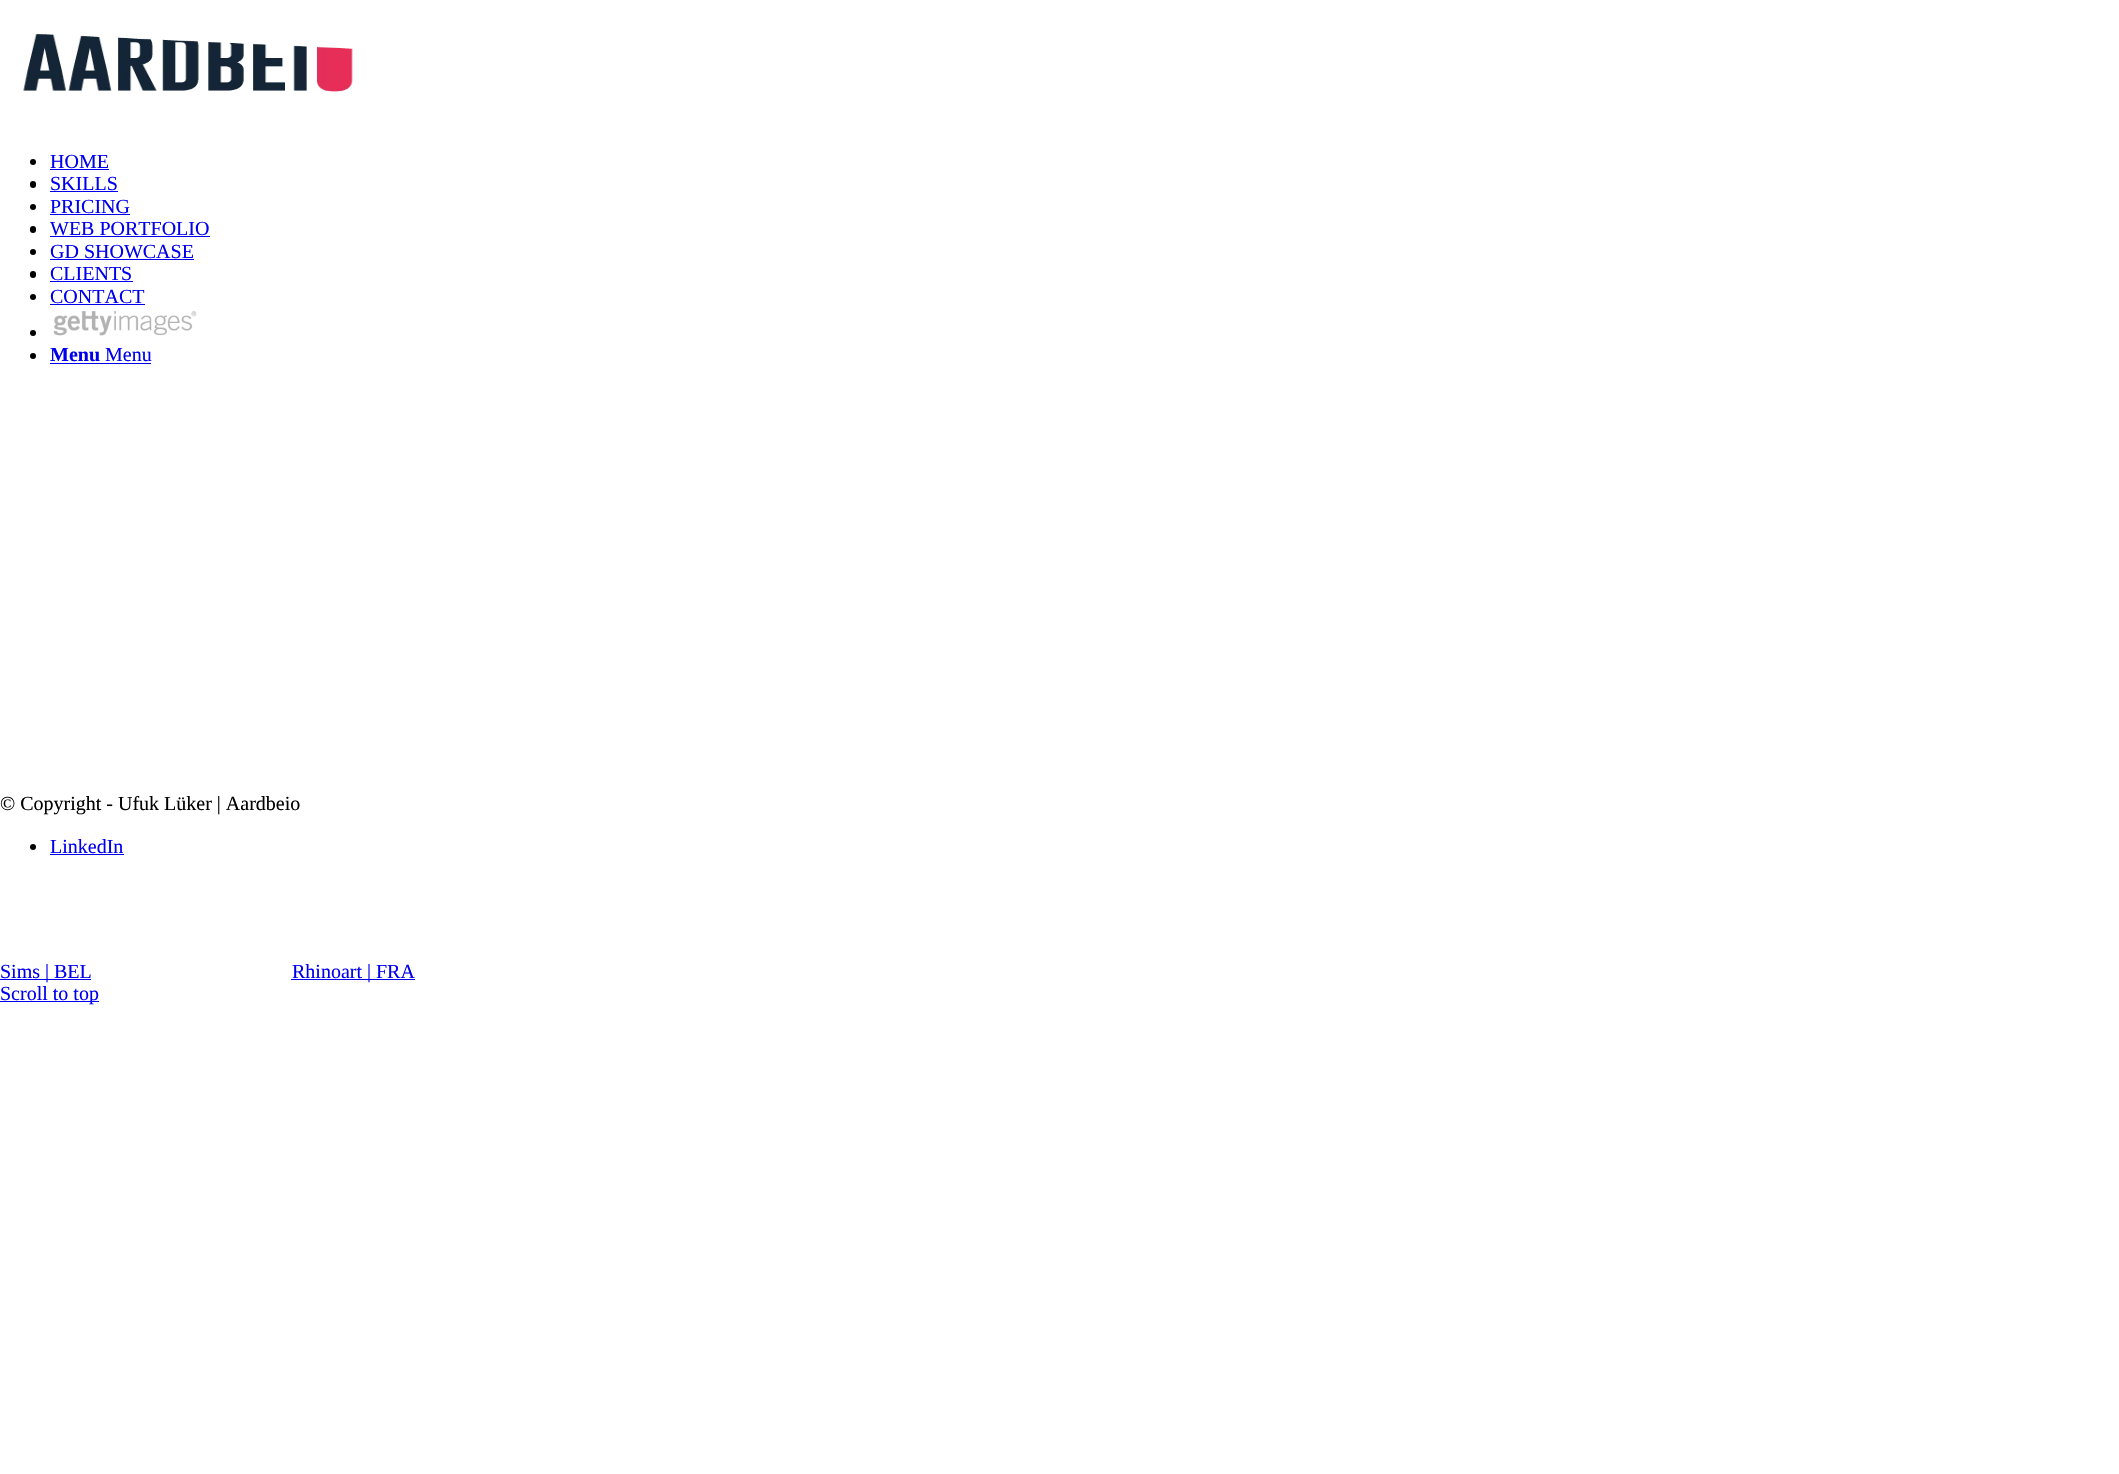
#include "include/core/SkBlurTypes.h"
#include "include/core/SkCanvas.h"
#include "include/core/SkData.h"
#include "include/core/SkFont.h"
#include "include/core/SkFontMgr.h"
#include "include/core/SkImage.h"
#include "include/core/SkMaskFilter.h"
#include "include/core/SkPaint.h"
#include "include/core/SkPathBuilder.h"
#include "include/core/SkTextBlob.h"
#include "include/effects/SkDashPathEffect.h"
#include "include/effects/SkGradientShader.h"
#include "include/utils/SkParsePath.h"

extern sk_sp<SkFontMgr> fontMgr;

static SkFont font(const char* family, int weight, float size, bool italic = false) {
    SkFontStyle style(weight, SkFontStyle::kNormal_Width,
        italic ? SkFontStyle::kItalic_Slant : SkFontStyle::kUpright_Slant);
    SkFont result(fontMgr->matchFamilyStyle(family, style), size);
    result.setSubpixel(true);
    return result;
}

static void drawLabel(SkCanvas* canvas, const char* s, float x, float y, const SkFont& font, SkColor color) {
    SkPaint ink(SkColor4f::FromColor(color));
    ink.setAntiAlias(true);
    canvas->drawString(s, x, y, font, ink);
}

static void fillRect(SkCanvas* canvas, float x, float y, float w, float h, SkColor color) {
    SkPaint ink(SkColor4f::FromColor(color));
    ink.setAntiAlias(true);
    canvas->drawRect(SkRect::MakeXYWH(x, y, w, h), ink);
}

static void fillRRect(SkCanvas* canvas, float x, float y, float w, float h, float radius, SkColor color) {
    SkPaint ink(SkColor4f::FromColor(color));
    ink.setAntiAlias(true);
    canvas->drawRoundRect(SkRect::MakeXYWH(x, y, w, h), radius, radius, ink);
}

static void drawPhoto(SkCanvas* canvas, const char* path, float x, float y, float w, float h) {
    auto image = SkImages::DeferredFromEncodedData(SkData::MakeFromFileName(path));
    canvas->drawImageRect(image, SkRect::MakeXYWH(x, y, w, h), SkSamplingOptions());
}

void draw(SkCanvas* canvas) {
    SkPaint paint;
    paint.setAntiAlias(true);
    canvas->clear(0xFFFFFFFF);
    drawPhoto(canvas, "assets/img1.png", 23, 33, 330, 59);
    paint.setColor(0xFF000000);
    canvas->drawCircle(33, 162, 3, paint);
    SkFont font1 = font("Liberation Serif", 400, 20);
    drawLabel(canvas, "HOME", 50, 168, font1, 0xFF0000EE);
    fillRect(canvas, 50, 169, 59, 1, 0xFF0000EE);
    fillRRect(canvas, 30, 181, 6, 7, 3, 0xFF000000);
    drawLabel(canvas, "SKILLS", 50, 190, font1, 0xFF0000EE);
    fillRect(canvas, 50, 191, 68, 1, 0xFF0000EE);
    canvas->drawCircle(33, 207, 3, paint);
    drawLabel(canvas, "PRICING", 50, 213, font1, 0xFF0000EE);
    fillRect(canvas, 50, 214, 80, 1, 0xFF0000EE);
    fillRRect(canvas, 30, 226, 6, 7, 3, 0xFF000000);
    drawLabel(canvas, "WEB PORTFOLIO", 50, 235, font1, 0xFF0000EE);
    fillRect(canvas, 50, 236, 160, 1, 0xFF0000EE);
    canvas->drawCircle(33, 252, 3, paint);
    drawLabel(canvas, "GD SHOWCASE", 50, 258, font1, 0xFF0000EE);
    fillRect(canvas, 50, 259, 144, 1, 0xFF0000EE);
    fillRRect(canvas, 30, 271, 6, 7, 3, 0xFF000000);
    drawLabel(canvas, "CLIENTS", 50, 280, font1, 0xFF0000EE);
    fillRect(canvas, 50, 281, 83, 1, 0xFF0000EE);
    canvas->drawCircle(33, 297, 3, paint);
    drawLabel(canvas, "CONTACT", 50, 303, font1, 0xFF0000EE);
    fillRect(canvas, 50, 304, 95, 1, 0xFF0000EE);
    canvas->drawCircle(33, 333, 3, paint);
    drawPhoto(canvas, "assets/img2.png", 53, 311, 144, 25);
    canvas->drawCircle(33, 356, 3, paint);
    SkFont font2 = font("Liberation Serif", 700, 20);
    drawLabel(canvas, "Menu", 50, 361, font2, 0xFF0000EE);
    fillRect(canvas, 50, 363, 101, 1, 0xFF0000EE);
    drawLabel(canvas, "Menu", 105, 361, font1, 0xFF0000EE);
    drawLabel(canvas, "© Copyright - Ufuk Lüker | Aardbeio", 0, 810, font1, 0xFF000000);
    canvas->drawCircle(33, 847, 3, paint);
    drawLabel(canvas, "LinkedIn", 50, 853, font1, 0xFF0000EE);
    fillRect(canvas, 50, 854, 74, 1, 0xFF0000EE);
    fillRect(canvas, 0, 979, 91, 1, 0xFF0000EE);
    drawLabel(canvas, "Sims | BEL", 0, 978, font1, 0xFF0000EE);
    fillRect(canvas, 291, 979, 124, 1, 0xFF0000EE);
    drawLabel(canvas, "Rhinoart | FRA", 292, 978, font1, 0xFF0000EE);
    fillRect(canvas, 0, 1001, 99, 1, 0xFF0000EE);
    drawLabel(canvas, "Scroll to top", 0, 1000, font1, 0xFF0000EE);
}
